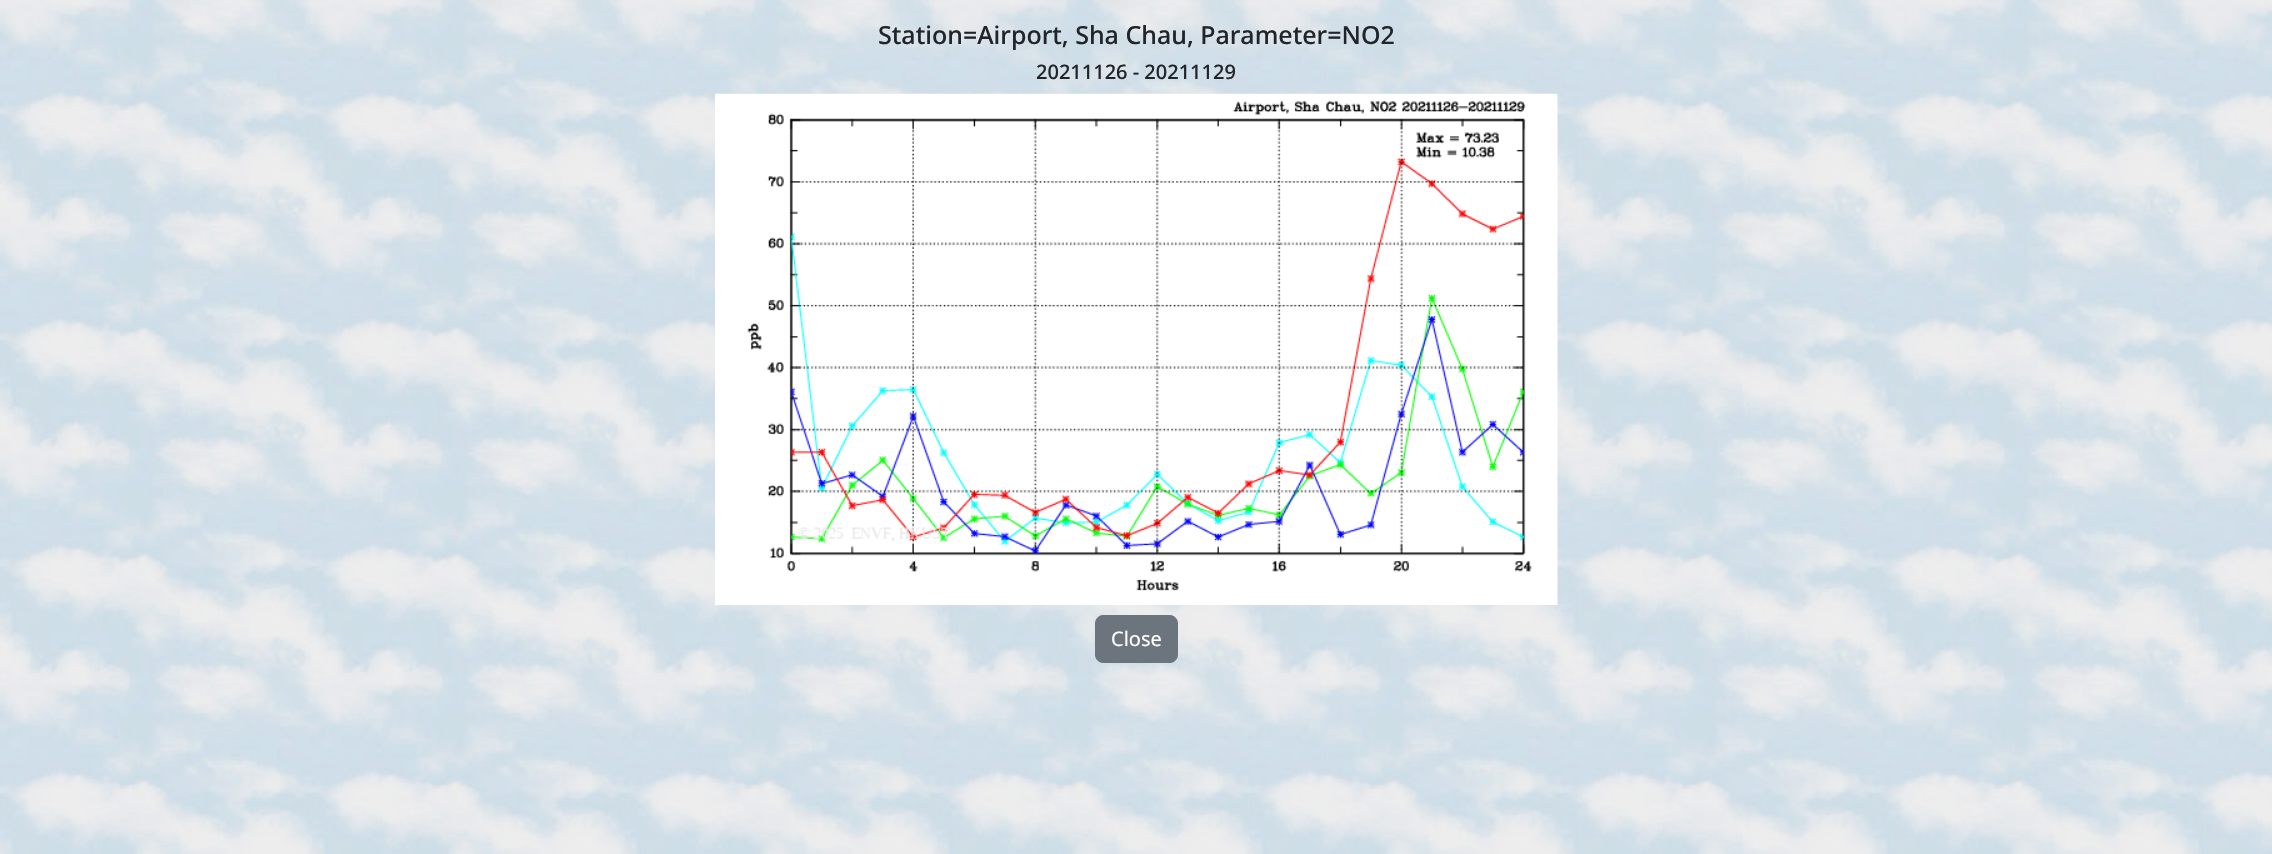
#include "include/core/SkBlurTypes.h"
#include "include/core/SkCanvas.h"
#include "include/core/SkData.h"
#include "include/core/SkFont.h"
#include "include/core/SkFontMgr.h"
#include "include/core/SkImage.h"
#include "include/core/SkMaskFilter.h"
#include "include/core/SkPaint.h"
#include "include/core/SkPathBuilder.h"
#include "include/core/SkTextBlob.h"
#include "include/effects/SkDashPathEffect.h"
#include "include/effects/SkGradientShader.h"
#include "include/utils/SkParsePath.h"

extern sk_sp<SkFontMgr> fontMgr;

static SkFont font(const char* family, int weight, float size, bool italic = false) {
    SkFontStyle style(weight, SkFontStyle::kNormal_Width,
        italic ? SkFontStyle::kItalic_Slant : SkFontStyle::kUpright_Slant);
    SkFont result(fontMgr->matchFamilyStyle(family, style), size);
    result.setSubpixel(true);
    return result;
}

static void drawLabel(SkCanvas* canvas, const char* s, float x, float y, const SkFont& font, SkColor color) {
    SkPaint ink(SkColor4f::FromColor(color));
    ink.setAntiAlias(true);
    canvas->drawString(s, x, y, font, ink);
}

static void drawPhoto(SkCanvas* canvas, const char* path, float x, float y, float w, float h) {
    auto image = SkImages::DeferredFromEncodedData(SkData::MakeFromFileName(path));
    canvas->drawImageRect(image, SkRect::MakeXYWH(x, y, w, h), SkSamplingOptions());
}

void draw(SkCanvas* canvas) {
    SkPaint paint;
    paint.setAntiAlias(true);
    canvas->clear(0xFFFFFFFF);
    drawPhoto(canvas, "assets/img1.png", 0, 0, 2272, 854);
    SkFont font1 = font("Noto Sans", 500, 25);
    drawLabel(canvas, "Station=Airport, Sha Chau, Parameter=NO2", 878, 44, font1, 0xFF212529);
    SkFont font2 = font("Noto Sans", 500, 20);
    drawLabel(canvas, "20211126 - 20211129", 1036, 79, font2, 0xFF212529);
    drawPhoto(canvas, "assets/img2.png", 715, 93, 843, 512);
    paint.setColor(0xFF6C757D);
    canvas->drawRoundRect(SkRect::MakeXYWH(1095.5f, 615.5f, 82, 47), 7.5f, 7.5f, paint);
    paint.setStroke(true);
    paint.setStrokeWidth(1);
    canvas->drawRoundRect(SkRect::MakeXYWH(1095.5f, 615.5f, 82, 47), 7.5f, 7.5f, paint);
    SkFont font3 = font("Noto Sans", 400, 20);
    drawLabel(canvas, "Close", 1111, 646, font3, 0xFFFFFFFF);
}
